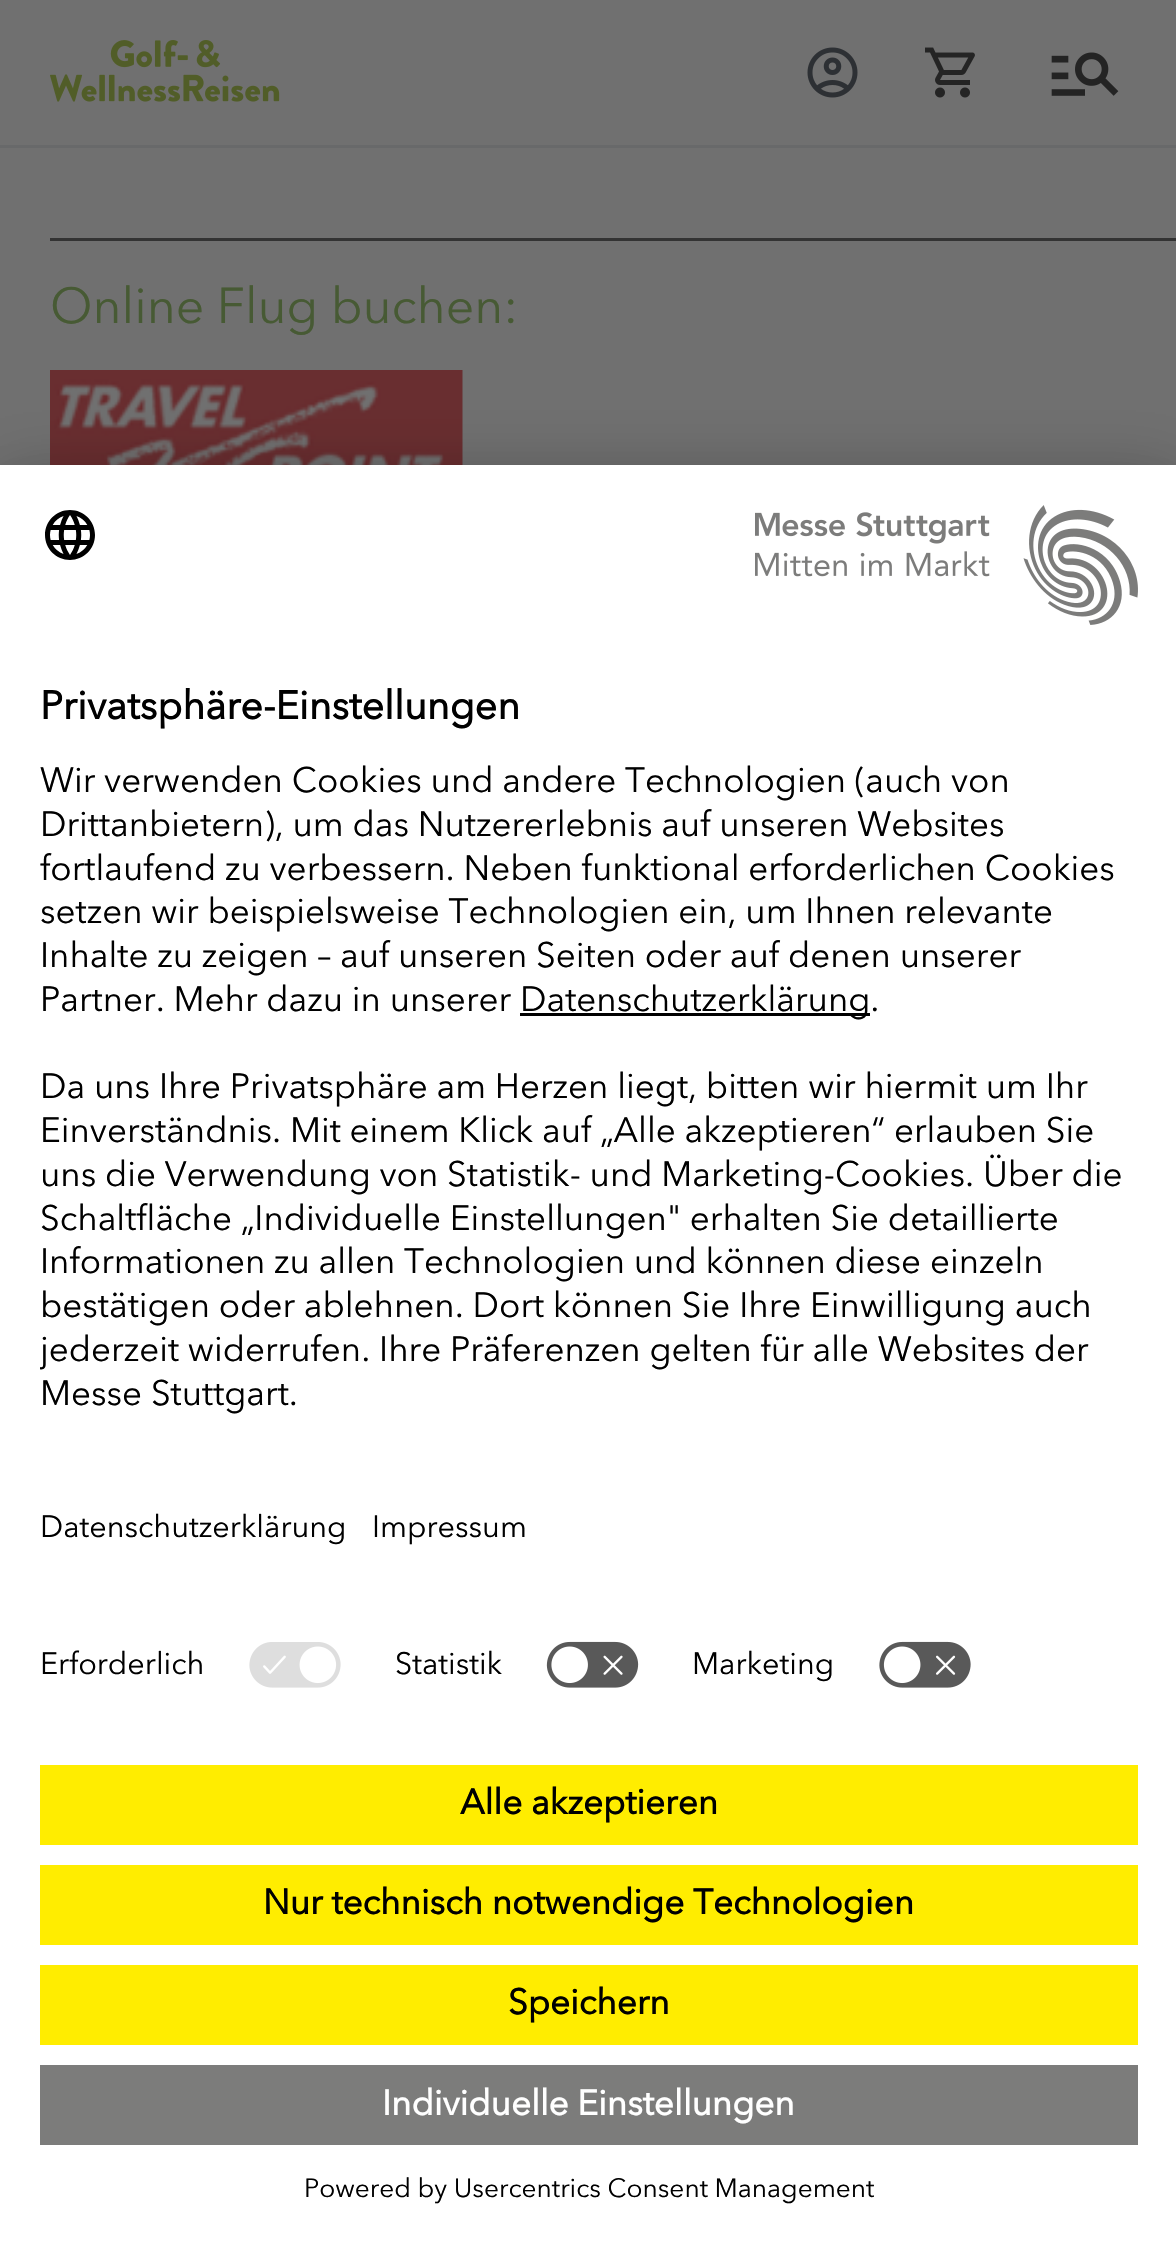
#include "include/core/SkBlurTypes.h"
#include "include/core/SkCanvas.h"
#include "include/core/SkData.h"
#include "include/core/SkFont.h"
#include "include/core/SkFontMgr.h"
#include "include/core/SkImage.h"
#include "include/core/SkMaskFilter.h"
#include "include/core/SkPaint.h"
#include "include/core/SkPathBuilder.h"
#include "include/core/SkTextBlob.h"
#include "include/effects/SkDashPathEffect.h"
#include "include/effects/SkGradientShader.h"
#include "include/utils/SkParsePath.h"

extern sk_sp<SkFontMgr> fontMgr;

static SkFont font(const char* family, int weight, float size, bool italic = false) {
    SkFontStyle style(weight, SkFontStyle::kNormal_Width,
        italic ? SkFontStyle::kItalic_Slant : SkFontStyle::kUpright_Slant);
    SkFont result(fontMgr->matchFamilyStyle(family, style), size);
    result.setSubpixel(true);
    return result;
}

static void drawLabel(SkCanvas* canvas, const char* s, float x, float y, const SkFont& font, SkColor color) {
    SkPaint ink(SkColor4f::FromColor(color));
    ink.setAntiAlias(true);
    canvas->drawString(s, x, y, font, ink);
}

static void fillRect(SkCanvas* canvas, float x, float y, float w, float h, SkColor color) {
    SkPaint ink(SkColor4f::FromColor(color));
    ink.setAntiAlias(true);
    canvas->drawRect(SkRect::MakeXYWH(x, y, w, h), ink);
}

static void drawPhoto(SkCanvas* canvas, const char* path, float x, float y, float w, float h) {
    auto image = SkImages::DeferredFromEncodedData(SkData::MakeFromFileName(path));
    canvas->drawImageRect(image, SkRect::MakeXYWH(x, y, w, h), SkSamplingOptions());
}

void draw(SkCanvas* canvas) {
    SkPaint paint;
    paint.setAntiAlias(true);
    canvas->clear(0xFF707070);
    fillRect(canvas, 0, 145, 1176, 3, 0xFF68696A);
    drawPhoto(canvas, "assets/img1.png", 50, 40, 230, 62);
    drawPhoto(canvas, "assets/img2.png", 807, 47, 51, 51);
    drawPhoto(canvas, "assets/img3.png", 925, 47, 50, 51);
    drawPhoto(canvas, "assets/img4.png", 1051, 52, 68, 44);
    fillRect(canvas, 50, 238, 1126, 3, 0xFF333333);
    SkFont font1 = font("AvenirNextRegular", 400, 50);
    drawLabel(canvas, "Online Flug buchen:", 50, 323, font1, 0xFF475A34);
    drawPhoto(canvas, "assets/img5.png", 50, 370, 413, 95);
    paint.setColor(0x4D000000);
    paint.setMaskFilter(SkMaskFilter::MakeBlur(kNormal_SkBlurStyle, 35));
    canvas->drawRect(SkRect::MakeXYWH(0, 515, 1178, 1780), paint);
    paint.setMaskFilter(nullptr);
    paint.setColor(0x38000000);
    paint.setMaskFilter(SkMaskFilter::MakeBlur(kNormal_SkBlurStyle, 32.5f));
    canvas->drawRect(SkRect::MakeXYWH(0, 478, 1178, 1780), paint);
    paint.setMaskFilter(nullptr);
    fillRect(canvas, 0, 465, 1176, 1780, 0xFFFFFFFF);
    drawPhoto(canvas, "assets/img6.png", 45, 510, 50, 50);
    drawPhoto(canvas, "assets/img7.png", 755, 505, 383, 120);
    SkFont font2 = font("AvenirNextRegular", 700, 39.4f);
    drawLabel(canvas, "Privatsphäre-Einstellungen", 40, 719, font2, 0xFF000000);
    SkFont font3 = font("AvenirNextRegular", 400, 35);
    drawLabel(canvas, "Wir verwenden Cookies und andere Technologien (auch von", 40, 792, font3, 0xFF000000);
    drawLabel(canvas, "Drittanbietern), um das Nutzererlebnis auf unseren Websites", 40, 836, font3, 0xFF000000);
    drawLabel(canvas, "fortlaufend zu verbessern. Neben funktional erforderlichen Cookies", 40, 880, font3, 0xFF000000);
    drawLabel(canvas, "setzen wir beispielsweise Technologien ein, um Ihnen relevante", 40, 923, font3, 0xFF000000);
    drawLabel(canvas, "Inhalte zu zeigen – auf unseren Seiten oder auf denen unserer", 40, 967, font3, 0xFF000000);
    drawLabel(canvas, "Partner. Mehr dazu in unserer", 40, 1011, font3, 0xFF000000);
    fillRect(canvas, 520, 1013, 350, 3, 0xFF000000);
    drawLabel(canvas, "Datenschutzerklärung.", 520, 1011, font3, 0xFF000000);
    drawLabel(canvas, "Da uns Ihre Privatsphäre am Herzen liegt, bitten wir hiermit um Ihr", 40, 1098, font3, 0xFF000000);
    drawLabel(canvas, "Einverständnis. Mit einem Klick auf „Alle akzeptieren“ erlauben Sie", 40, 1142, font3, 0xFF000000);
    drawLabel(canvas, "uns die Verwendung von Statistik- und Marketing-Cookies. Über die", 40, 1186, font3, 0xFF000000);
    drawLabel(canvas, "Schaltfläche „Individuelle Einstellungen\" erhalten Sie detaillierte", 40, 1230, font3, 0xFF000000);
    drawLabel(canvas, "Informationen zu allen Technologien und können diese einzeln", 40, 1273, font3, 0xFF000000);
    drawLabel(canvas, "bestätigen oder ablehnen. Dort können Sie Ihre Einwilligung auch", 40, 1317, font3, 0xFF000000);
    canvas->save();
    canvas->clipRect(SkRect::MakeXYWH(40, 750, 1098, 720));
    drawLabel(canvas, "jederzeit widerrufen. Ihre Präferenzen gelten für alle Websites der", 40, 1361, font3, 0xFF000000);
    canvas->restore();
    drawLabel(canvas, "Messe Stuttgart.", 40, 1405, font3, 0xFF000000);
    SkFont font4 = font("AvenirNextRegular", 400, 30.6f);
    drawLabel(canvas, "Datenschutzerklärung", 40, 1537, font4, 0xFF000000);
    drawLabel(canvas, "Impressum", 372, 1537, font4, 0xFF000000);
    drawLabel(canvas, "Erforderlich", 40, 1674, font4, 0xFF000000);
    drawPhoto(canvas, "assets/img8.png", 249, 1642, 92, 46);
    drawLabel(canvas, "Statistik", 395, 1674, font4, 0xFF000000);
    drawPhoto(canvas, "assets/img9.png", 546, 1641, 93, 47);
    drawLabel(canvas, "Marketing", 692, 1674, font4, 0xFF000000);
    drawPhoto(canvas, "assets/img10.png", 879, 1641, 92, 47);
    fillRect(canvas, 40, 1765, 1098, 80, 0xFFFFED00);
    SkFont font5 = font("AvenirNextRegular", 700, 35);
    drawLabel(canvas, "Alle akzeptieren", 460, 1814, font5, 0xFF000000);
    fillRect(canvas, 40, 1865, 1098, 80, 0xFFFFED00);
    drawLabel(canvas, "Nur technisch notwendige Technologien", 263, 1914, font5, 0xFF000000);
    fillRect(canvas, 40, 1965, 1098, 80, 0xFFFFED00);
    drawLabel(canvas, "Speichern", 508, 2014, font5, 0xFF000000);
    fillRect(canvas, 40, 2065, 1098, 80, 0xFF7C7C7B);
    drawLabel(canvas, "Individuelle Einstellungen", 382, 2115, font5, 0xFFFFFFFF);
    SkFont font6 = font("AvenirNextRegular", 400, 26.25f);
    drawLabel(canvas, "Powered by Usercentrics Consent Management", 304, 2197, font6, 0xFF000000);
}
